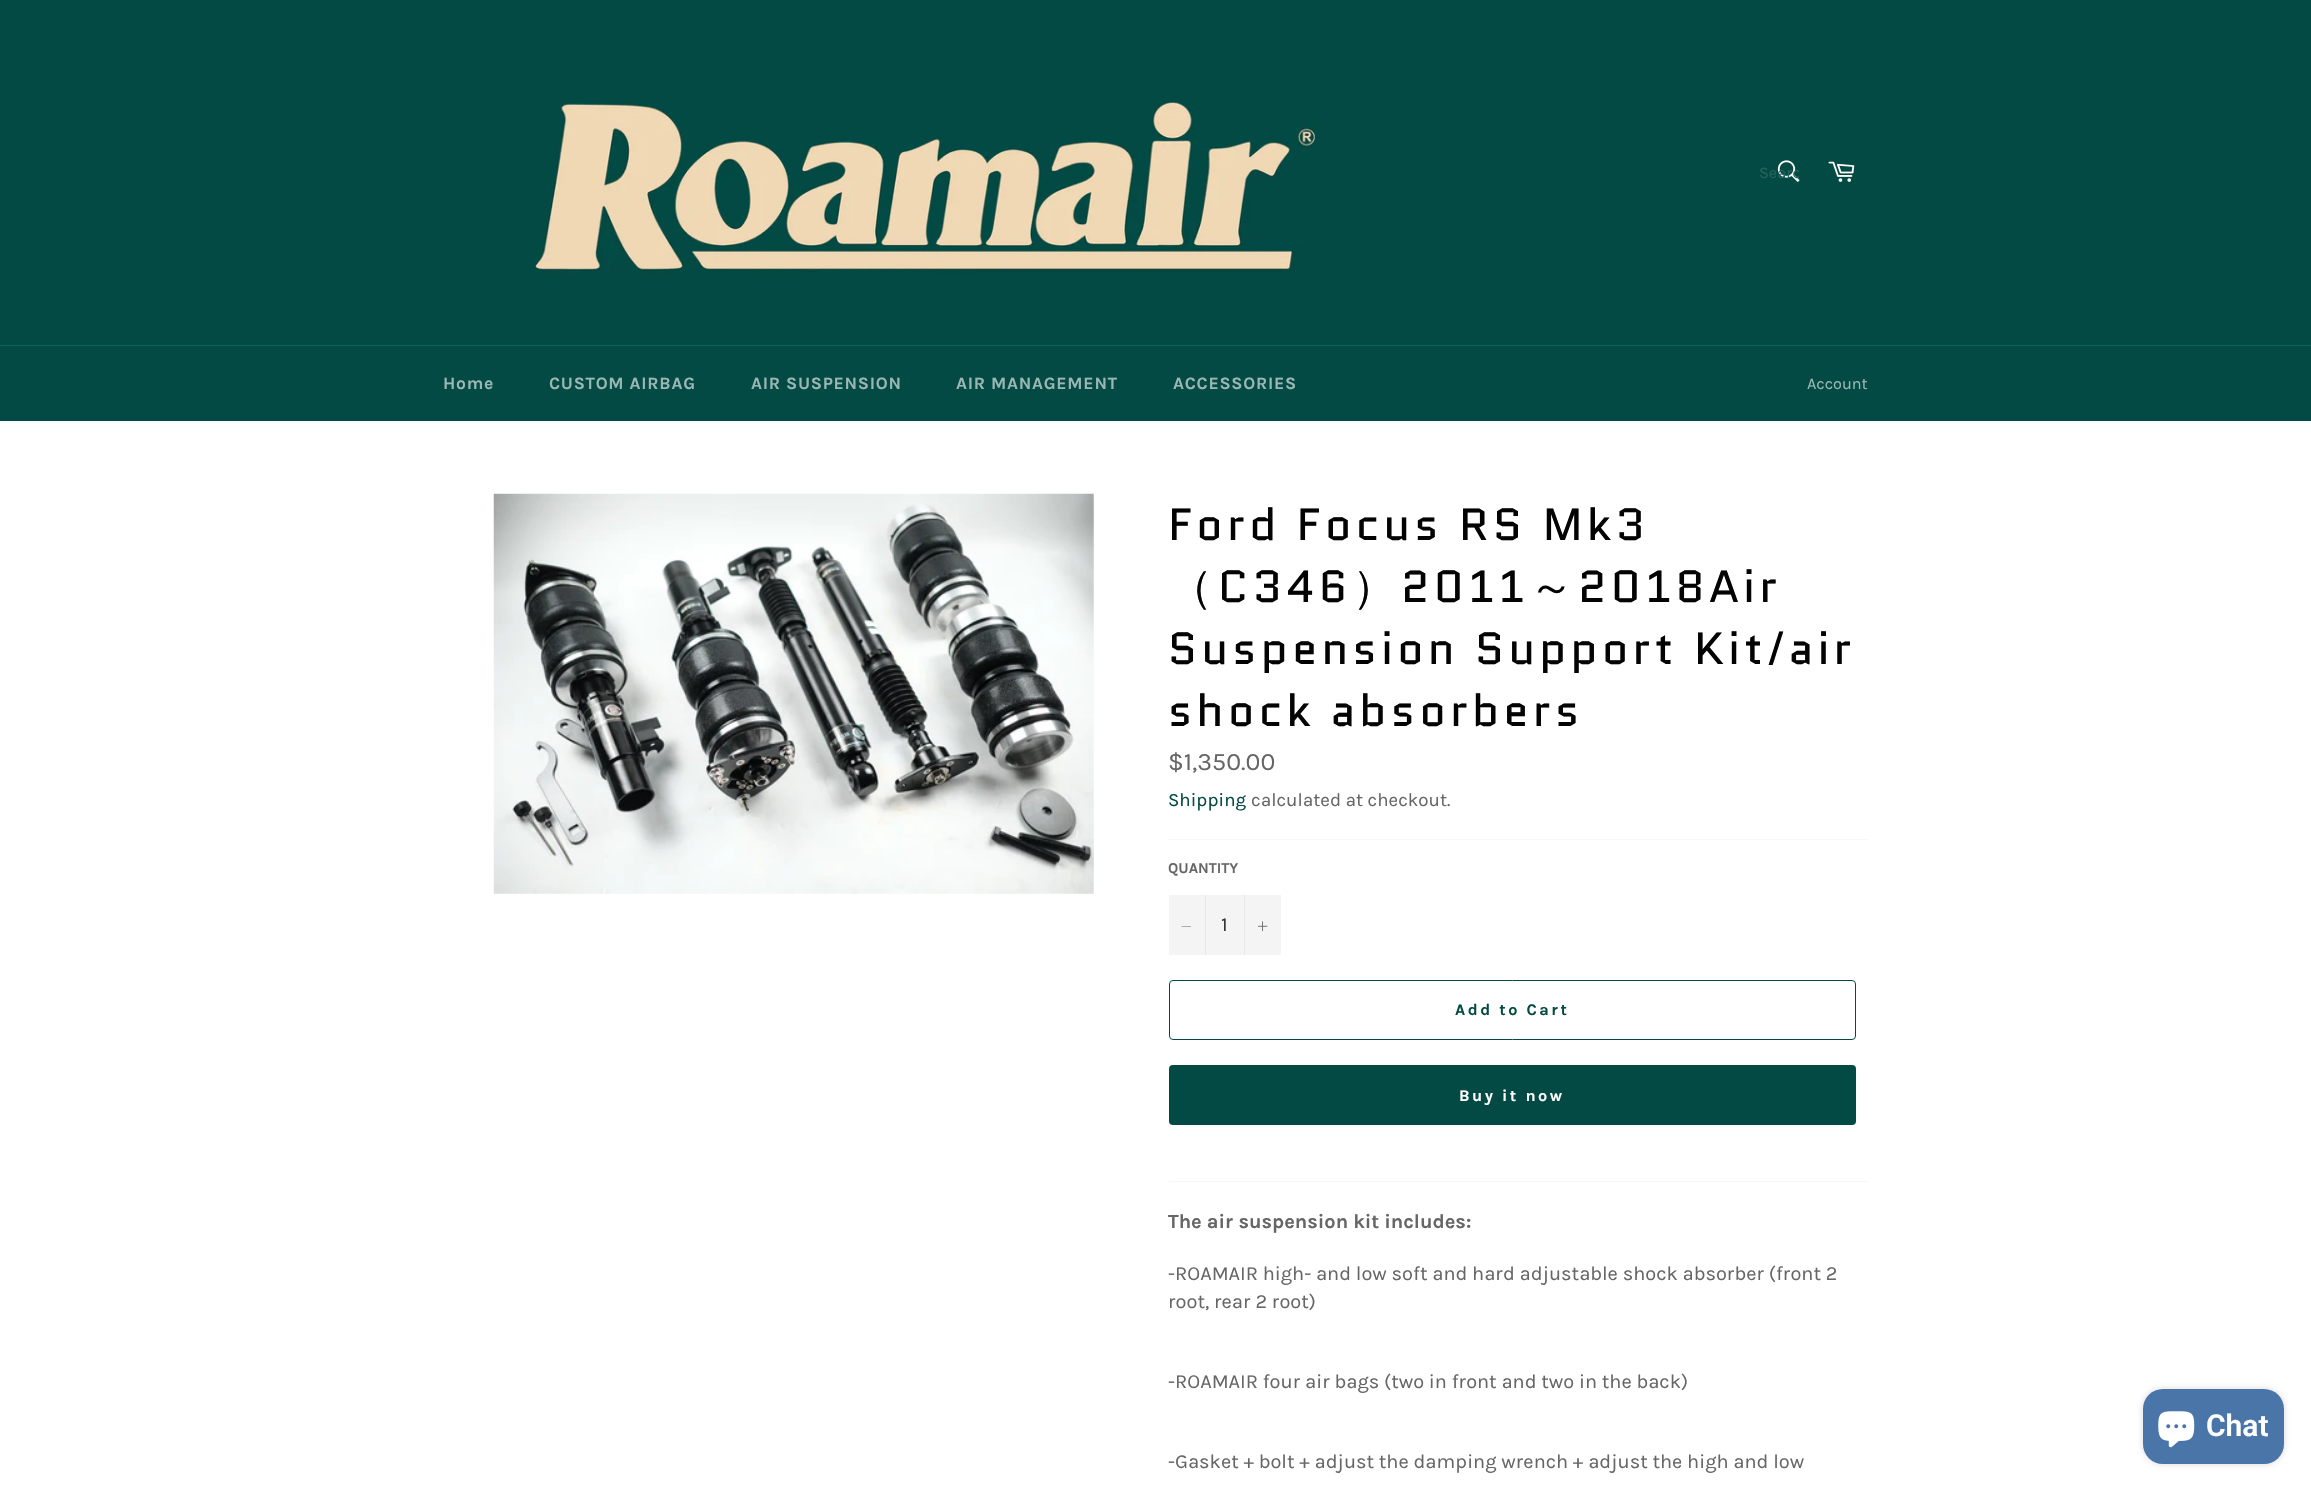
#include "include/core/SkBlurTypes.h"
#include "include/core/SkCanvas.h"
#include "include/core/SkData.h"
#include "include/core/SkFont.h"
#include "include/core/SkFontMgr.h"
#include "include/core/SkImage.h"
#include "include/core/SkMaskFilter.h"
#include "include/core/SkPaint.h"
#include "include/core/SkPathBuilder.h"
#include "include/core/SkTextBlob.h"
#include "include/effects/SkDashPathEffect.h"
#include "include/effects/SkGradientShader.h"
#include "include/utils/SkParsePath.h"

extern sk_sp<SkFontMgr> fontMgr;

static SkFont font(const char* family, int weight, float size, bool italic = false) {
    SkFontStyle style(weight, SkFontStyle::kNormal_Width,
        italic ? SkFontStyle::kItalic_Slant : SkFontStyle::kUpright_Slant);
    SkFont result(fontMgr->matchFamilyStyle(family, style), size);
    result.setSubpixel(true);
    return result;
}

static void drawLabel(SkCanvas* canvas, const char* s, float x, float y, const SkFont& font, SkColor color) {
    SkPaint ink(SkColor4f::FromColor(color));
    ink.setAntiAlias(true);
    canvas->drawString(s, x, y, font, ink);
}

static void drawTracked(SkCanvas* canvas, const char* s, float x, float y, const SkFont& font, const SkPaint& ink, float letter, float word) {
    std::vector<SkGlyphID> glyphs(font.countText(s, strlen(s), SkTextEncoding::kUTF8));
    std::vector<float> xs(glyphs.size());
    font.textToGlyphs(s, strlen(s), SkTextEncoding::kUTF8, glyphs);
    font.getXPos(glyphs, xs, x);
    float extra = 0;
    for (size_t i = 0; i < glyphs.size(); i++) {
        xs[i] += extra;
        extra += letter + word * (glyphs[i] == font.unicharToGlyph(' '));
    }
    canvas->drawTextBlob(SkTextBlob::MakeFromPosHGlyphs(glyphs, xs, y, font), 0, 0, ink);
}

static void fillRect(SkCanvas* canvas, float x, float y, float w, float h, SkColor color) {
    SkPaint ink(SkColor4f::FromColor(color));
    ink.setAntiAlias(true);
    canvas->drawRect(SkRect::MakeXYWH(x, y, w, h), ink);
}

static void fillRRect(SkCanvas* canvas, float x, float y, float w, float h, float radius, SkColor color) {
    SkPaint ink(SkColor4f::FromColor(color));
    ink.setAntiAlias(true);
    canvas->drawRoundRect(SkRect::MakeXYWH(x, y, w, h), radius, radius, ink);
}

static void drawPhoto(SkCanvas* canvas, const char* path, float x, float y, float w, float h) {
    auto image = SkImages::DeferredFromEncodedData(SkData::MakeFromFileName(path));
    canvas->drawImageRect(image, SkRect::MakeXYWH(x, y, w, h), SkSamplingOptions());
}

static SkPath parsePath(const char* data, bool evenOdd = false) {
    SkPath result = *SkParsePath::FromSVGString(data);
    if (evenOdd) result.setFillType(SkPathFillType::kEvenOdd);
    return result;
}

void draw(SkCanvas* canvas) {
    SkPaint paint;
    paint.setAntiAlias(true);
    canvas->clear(0xFF034A44);
    drawPhoto(canvas, "assets/img1.png", 534, 101, 784, 173);
    drawPhoto(canvas, "assets/img2.png", 1777, 160, 23, 22);
    canvas->save();
    canvas->clipRect(SkRect::MakeXYWH(1759, 164, 40, 19));
    SkFont font1 = font("Karla", 400, 16.25f);
    drawLabel(canvas, "Searc", 1759, 178, font1, 0xFF26635E);
    canvas->restore();
    drawPhoto(canvas, "assets/img3.png", 1828, 161, 27, 21);
    fillRect(canvas, 0, 345, 2311, 1, 0xFF04635B);
    SkFont font2 = font("Karla", 700, 17.5f);
    paint.setColor(0xFF9AB7B4);
    drawTracked(canvas, "Home", 443, 389, font2, paint, 0.75f, 0);
    drawTracked(canvas, "CUSTOM AIRBAG", 549, 389, font2, paint, 0.75f, 0);
    drawTracked(canvas, "AIR SUSPENSION", 751, 389, font2, paint, 0.75f, 0);
    drawTracked(canvas, "AIR MANAGEMENT", 956, 389, font2, paint, 0.75f, 0);
    drawTracked(canvas, "ACCESSORIES", 1173, 389, font2, paint, 0.75f, 0);
    drawLabel(canvas, "Account", 1807, 389, font1, 0xFF9AB7B4);
    fillRect(canvas, 0, 421, 2311, 1069, 0xFFFFFFFF);
    drawPhoto(canvas, "assets/img4.png", 493, 493, 601, 401);
    SkFont font3 = font("Quantico", 400, 45);
    paint.setColor(0xFF030303);
    drawTracked(canvas, "Ford Focus RS Mk3", 1168, 540, font3, paint, 4.5f, 0);
    SkFont font4 = font("WenQuanYi Zen Hei", 500, 45);
    drawTracked(canvas, "（", 1168, 602, font4, paint, 4.5f, 0);
    drawTracked(canvas, "C346", 1218, 602, font3, paint, 4.5f, 0);
    drawTracked(canvas, "）", 1352, 602, font4, paint, 4.5f, 0);
    drawTracked(canvas, "2011", 1401, 602, font3, paint, 4.5f, 0);
    drawTracked(canvas, "～", 1529, 602, font4, paint, 4.5f, 0);
    drawTracked(canvas, "2018Air", 1578, 602, font3, paint, 4.5f, 0);
    drawTracked(canvas, "Suspension Support Kit/air", 1168, 664, font3, paint, 4.5f, 0);
    drawTracked(canvas, "shock absorbers", 1168, 726, font3, paint, 4.5f, 0);
    SkFont font5 = font("Karla", 400, 25);
    drawLabel(canvas, "$1,350.00", 1168, 770, font5, 0xFF666666);
    SkFont font6 = font("Karla", 400, 18.75f);
    drawLabel(canvas, "Shipping", 1168, 806, font6, 0xFF034A44);
    drawLabel(canvas, "calculated at checkout.", 1251, 806, font6, 0xFF666666);
    fillRect(canvas, 1169, 839, 700, 1, 0xFFF7F7F7);
    SkFont font7 = font("Karla", 700, 15);
    drawLabel(canvas, "QUANTITY", 1168, 873, font7, 0xFF666666);
    fillRect(canvas, 1169, 895, 112, 60, 0xFFF4F4F4);
    fillRect(canvas, 1205, 895, 1, 60, 0xFFE7E7E7);
    paint.setColor(0xFF666666);
    canvas->drawPath(parsePath("M1191 926V926.5H1181.5V926Z", true), paint);
    SkFont font8 = font("Karla", 400, 20);
    drawLabel(canvas, "1", 1221, 931, font8, 0xFF333333);
    fillRect(canvas, 1244, 895, 1, 60, 0xFFE7E7E7);
    drawPhoto(canvas, "assets/img5.png", 1258, 921, 10, 10);
    paint.setStroke(true);
    paint.setStrokeWidth(1);
    paint.setColor(0xFF034A44);
    canvas->drawRoundRect(SkRect::MakeXYWH(1169.5f, 980.5f, 686, 59), 3.5f, 3.5f, paint);
    SkFont font9 = font("Karla", 700, 16.25f);
    paint.setStroke(false);
    drawTracked(canvas, "Add to Cart", 1455, 1015, font9, paint, 2.5f, 0);
    fillRRect(canvas, 1169, 1065, 687, 60, 4, 0xFF034A44);
    paint.setColor(0xFFFFFFFF);
    drawTracked(canvas, "Buy it now", 1459, 1101, font9, paint, 2.5f, 0);
    fillRect(canvas, 1169, 1181, 700, 1, 0xFFF7F7F7);
    SkFont font10 = font("Karla", 700, 20);
    drawLabel(canvas, "The air suspension kit includes:", 1168, 1228, font10, 0xFF666666);
    drawLabel(canvas, "-ROAMAIR high- and low soft and hard adjustable shock absorber (front 2", 1168, 1280, font8, 0xFF666666);
    drawLabel(canvas, "root, rear 2 root)", 1168, 1308, font8, 0xFF666666);
    drawLabel(canvas, "-ROAMAIR four air bags (two in front and two in the back)", 1168, 1388, font8, 0xFF666666);
    drawLabel(canvas, "-Gasket + bolt + adjust the damping wrench + adjust the high and low", 1168, 1468, font8, 0xFF666666);
    paint.setColor(0x26000000);
    paint.setMaskFilter(SkMaskFilter::MakeBlur(kNormal_SkBlurStyle, 3));
    canvas->drawRoundRect(SkRect::MakeXYWH(2143, 1389, 141, 75), 20, 20, paint);
    paint.setMaskFilter(nullptr);
    fillRRect(canvas, 2143, 1389, 141, 75, 20, 0xFF4A75A9);
    drawPhoto(canvas, "assets/img6.png", 2158, 1411, 37, 37);
    SkFont font11 = font("Roboto", 600, 30);
    drawLabel(canvas, "Chat", 2206, 1436, font11, 0xFFFFFFFF);
}
